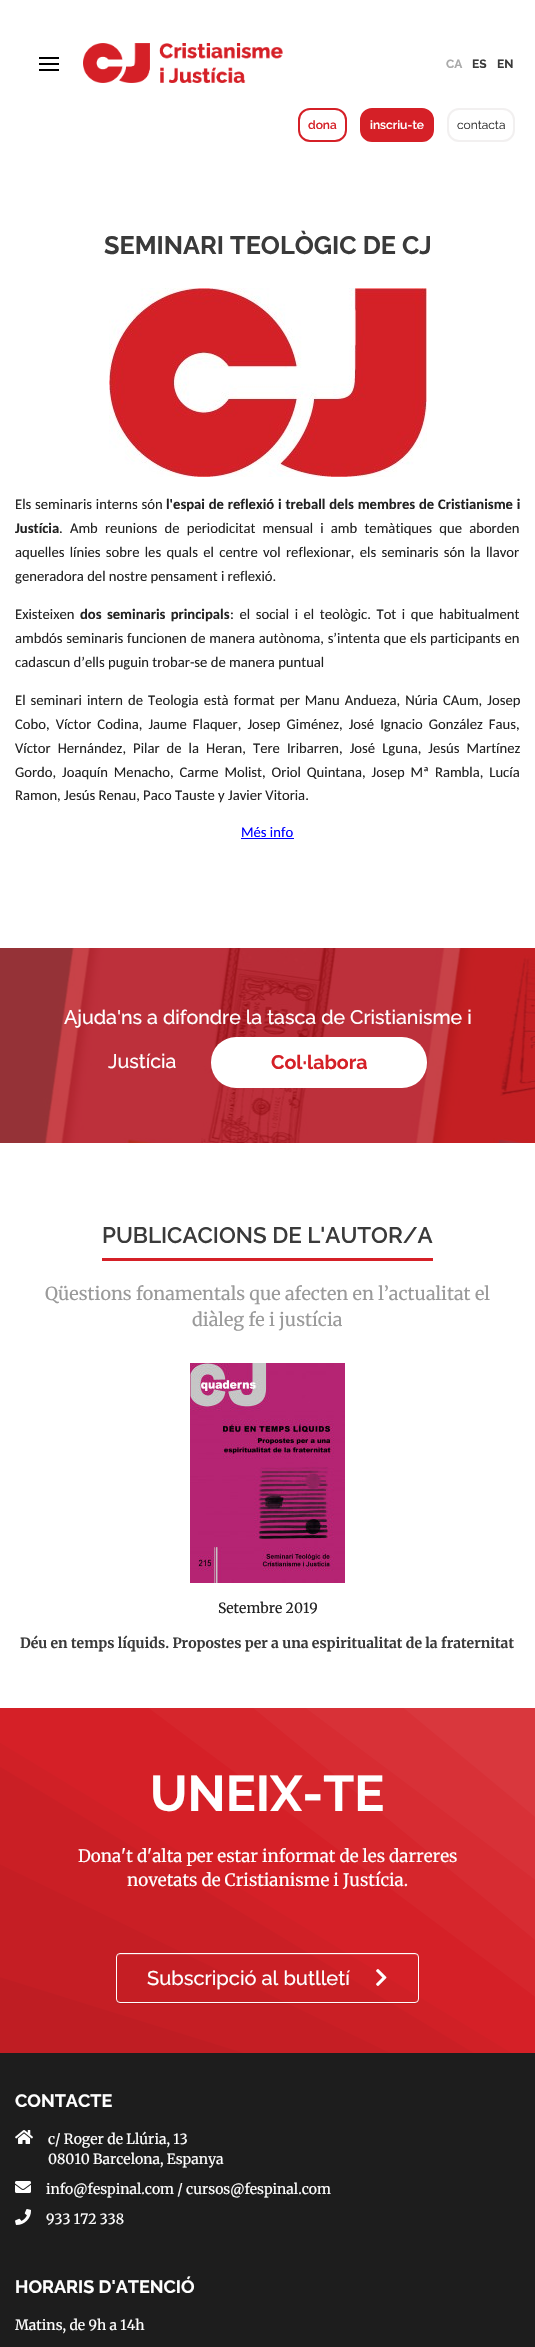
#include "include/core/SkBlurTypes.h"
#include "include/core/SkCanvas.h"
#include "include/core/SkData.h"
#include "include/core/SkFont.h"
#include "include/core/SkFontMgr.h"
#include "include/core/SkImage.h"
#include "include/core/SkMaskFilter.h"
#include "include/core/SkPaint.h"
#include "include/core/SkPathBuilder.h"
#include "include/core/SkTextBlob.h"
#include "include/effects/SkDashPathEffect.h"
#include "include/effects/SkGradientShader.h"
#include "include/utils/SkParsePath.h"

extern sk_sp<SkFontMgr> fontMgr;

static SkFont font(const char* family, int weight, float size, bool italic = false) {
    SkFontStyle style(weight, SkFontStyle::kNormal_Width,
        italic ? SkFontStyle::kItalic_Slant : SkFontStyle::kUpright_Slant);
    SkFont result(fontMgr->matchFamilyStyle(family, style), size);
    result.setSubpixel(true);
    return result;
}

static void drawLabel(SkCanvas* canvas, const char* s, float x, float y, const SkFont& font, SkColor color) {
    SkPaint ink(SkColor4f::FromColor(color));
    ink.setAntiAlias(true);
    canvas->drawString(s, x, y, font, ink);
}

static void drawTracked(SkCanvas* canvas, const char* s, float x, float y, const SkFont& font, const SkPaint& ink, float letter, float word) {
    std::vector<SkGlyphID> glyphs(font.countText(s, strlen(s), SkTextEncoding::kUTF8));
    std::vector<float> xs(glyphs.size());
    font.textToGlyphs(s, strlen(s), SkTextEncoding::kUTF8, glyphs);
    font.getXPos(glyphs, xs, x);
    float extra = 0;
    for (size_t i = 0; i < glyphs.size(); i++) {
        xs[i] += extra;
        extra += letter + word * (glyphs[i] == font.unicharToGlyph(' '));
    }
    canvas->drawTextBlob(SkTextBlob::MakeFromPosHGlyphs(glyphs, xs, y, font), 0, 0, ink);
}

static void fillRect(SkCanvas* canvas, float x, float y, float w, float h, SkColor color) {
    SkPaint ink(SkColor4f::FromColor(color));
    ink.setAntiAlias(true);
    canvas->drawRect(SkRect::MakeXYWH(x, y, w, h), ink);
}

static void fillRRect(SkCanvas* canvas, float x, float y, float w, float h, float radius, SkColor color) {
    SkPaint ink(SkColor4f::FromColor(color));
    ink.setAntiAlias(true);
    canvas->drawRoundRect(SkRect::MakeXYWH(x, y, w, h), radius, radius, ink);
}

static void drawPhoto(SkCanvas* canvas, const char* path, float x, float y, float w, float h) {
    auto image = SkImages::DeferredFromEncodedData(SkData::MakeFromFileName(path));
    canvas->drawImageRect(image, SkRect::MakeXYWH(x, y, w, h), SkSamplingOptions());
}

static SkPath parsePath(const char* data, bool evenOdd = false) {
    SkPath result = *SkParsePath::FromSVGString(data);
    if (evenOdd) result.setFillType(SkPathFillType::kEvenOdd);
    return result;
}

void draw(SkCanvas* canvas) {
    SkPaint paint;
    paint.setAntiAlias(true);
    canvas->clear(0xFFFFFFFF);
    fillRect(canvas, 39, 57, 20, 2, 0xFF000000);
    fillRect(canvas, 39, 63, 20, 2, 0xFF000000);
    fillRect(canvas, 39, 69, 20, 2, 0xFF000000);
    drawPhoto(canvas, "assets/img1.png", 83, 43, 200, 40);
    SkFont font1 = font("Raleway", 700, 12);
    drawLabel(canvas, "CA", 446, 68, font1, 0xFFAAAAAA);
    drawLabel(canvas, "ES", 472, 68, font1, 0xFF3A3A3A);
    drawLabel(canvas, "EN", 497, 68, font1, 0xFF3A3A3A);
    paint.setStroke(true);
    paint.setStrokeWidth(2);
    paint.setColor(0xFFD52027);
    canvas->drawRoundRect(SkRect::MakeXYWH(299, 109, 47, 32), 11, 11, paint);
    SkFont font2 = font("Raleway", 600, 12);
    drawLabel(canvas, "dona", 308, 129, font2, 0xFFD52027);
    paint.setStroke(false);
    canvas->drawRoundRect(SkRect::MakeXYWH(361, 109, 72, 32), 11, 11, paint);
    paint.setStroke(true);
    canvas->drawRoundRect(SkRect::MakeXYWH(361, 109, 72, 32), 11, 11, paint);
    drawLabel(canvas, "inscriu-te", 370, 129, font2, 0xFFFFFFFF);
    paint.setColor(0xFFF2F0F0);
    canvas->drawRoundRect(SkRect::MakeXYWH(448, 109, 66, 32), 11, 11, paint);
    SkFont font3 = font("Raleway", 400, 12);
    drawLabel(canvas, "contacta", 457, 129, font3, 0xFF333333);
    SkFont font4 = font("Raleway", 700, 25.25f);
    drawLabel(canvas, "SEMINARI TEOLÒGIC DE CJ", 104, 254, font4, 0xFF3A3A3A);
    drawPhoto(canvas, "assets/img2.png", 109, 288, 318, 189);
    SkFont font5 = font("Carlito", 400, 14.65f);
    paint.setStroke(false);
    paint.setColor(0xFF222222);
    drawTracked(canvas, "Els seminaris interns són", 15, 509, font5, paint, 0, 0.5f);
    SkFont font6 = font("Carlito", 700, 14.65f);
    drawTracked(canvas, "l'espai de reflexió i treball dels membres de Cristianisme i", 166, 509, font6, paint, 0, 0.5f);
    drawLabel(canvas, "Justícia", 15, 533, font6, 0xFF222222);
    drawTracked(canvas, ". Amb reunions de periodicitat mensual i amb temàtiques que aborden", 59, 533, font5, paint, 0, 3.9f);
    drawTracked(canvas, "aquelles línies sobre les quals el centre vol reflexionar, els seminaris són la llavor", 15, 557, font5, paint, 0, 2);
    drawLabel(canvas, "generadora del nostre pensament i reflexió.", 15, 581, font5, 0xFF222222);
    drawLabel(canvas, "Existeixen", 15, 619, font5, 0xFF222222);
    drawTracked(canvas, "dos seminaris principals", 80, 619, font6, paint, 0, 2);
    drawTracked(canvas, ": el social i el teològic. Tot i que habitualment", 230, 619, font5, paint, 0, 2.25f);
    drawTracked(canvas, "ambdós seminaris funcionen de manera autònoma, s’intenta que els participants en", 15, 643, font5, paint, 0, 0.4f);
    drawLabel(canvas, "cadascun d’ells puguin trobar-se de manera puntual", 15, 667, font5, 0xFF222222);
    drawTracked(canvas, "El seminari intern de Teologia està format per Manu Andueza, Núria CAum, Josep", 15, 705, font5, paint, 0, 1.75f);
    drawTracked(canvas, "Cobo, Víctor Codina, Jaume Flaquer, Josep Giménez, José Ignacio González Faus,", 15, 729, font5, paint, 0, 2.75f);
    drawTracked(canvas, "Víctor Hernández, Pilar de la Heran, Tere Iribarren, José Lguna, Jesús Martínez", 15, 753, font5, paint, 0, 3.75f);
    drawTracked(canvas, "Gordo, Joaquín Menacho, Carme Molist, Oriol Quintana, Josep Mª Rambla, Lucía", 15, 777, font5, paint, 0, 2.6f);
    drawLabel(canvas, "Ramon, Jesús Renau, Paco Tauste y Javier Vitoria.", 15, 800, font5, 0xFF222222);
    drawLabel(canvas, "Més info", 241, 837, font5, 0xFF0000FF);
    fillRect(canvas, 241, 838, 53, 1, 0xFF0000FF);
    drawPhoto(canvas, "assets/img3.png", 0, 948, 535, 195);
    SkFont font7 = font("Raleway", 500, 19.6f);
    drawLabel(canvas, "Ajuda'ns a difondre la tasca de Cristianisme i", 64, 1024, font7, 0xFFFFFFFF);
    drawLabel(canvas, "Justícia", 108, 1068, font7, 0xFFFFFFFF);
    fillRRect(canvas, 211, 1037, 216, 51, 25, 0xFFFFFFFF);
    SkFont font8 = font("Raleway", 700, 19.6f);
    drawLabel(canvas, "Col·labora", 271, 1069, font8, 0xFFD52027);
    fillRect(canvas, 102, 1258, 331, 3, 0xFFD52027);
    SkFont font9 = font("Raleway", 600, 22.4f);
    drawLabel(canvas, "PUBLICACIONS DE L'AUTOR/A", 102, 1243, font9, 0xFF3A3A3A);
    SkFont font10 = font("Merriweather", 400, 18);
    drawLabel(canvas, "Qüestions fonamentals que afecten en l’actualitat el", 45, 1300, font10, 0xFF9A9A9A);
    drawLabel(canvas, "diàleg fe i justícia", 192, 1326, font10, 0xFF9A9A9A);
    drawPhoto(canvas, "assets/img4.png", 190, 1363, 155, 220);
    SkFont font11 = font("Merriweather", 400, 14);
    drawLabel(canvas, "Setembre 2019", 218, 1613, font11, 0xFF222222);
    SkFont font12 = font("Merriweather", 700, 14);
    drawLabel(canvas, "Déu en temps líquids. Propostes per a una espiritualitat de la fraternitat", 20, 1648, font12, 0xFF3A3A3A);
    fillRect(canvas, 0, 1708, 535, 345, 0xFFD52027);
    drawPhoto(canvas, "assets/img5.png", 0, 1708, 535, 345);
    SkFont font13 = font("Raleway", 700, 50);
    drawLabel(canvas, "UNEIX-TE", 150, 1811, font13, 0xFFFFFFFF);
    SkFont font14 = font("Merriweather", 400, 17);
    drawLabel(canvas, "Dona't d'alta per estar informat de les darreres", 78, 1862, font14, 0xFFFFFFFF);
    drawLabel(canvas, "novetats de Cristianisme i Justícia.", 127, 1886, font14, 0xFFFFFFFF);
    canvas->save();
    canvas->clipPath(parsePath("M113 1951H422V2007H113ZM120 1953H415C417 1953 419 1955 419 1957V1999C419 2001 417 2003 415 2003H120C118 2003 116 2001 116 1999V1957C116 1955 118 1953 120 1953Z", true), true);
    paint.setColor(0x12000000);
    paint.setMaskFilter(SkMaskFilter::MakeBlur(kNormal_SkBlurStyle, 0.5f));
    canvas->drawRoundRect(SkRect::MakeXYWH(116, 1954, 303, 50), 4, 4, paint);
    paint.setMaskFilter(nullptr);
    canvas->restore();
    paint.setColor(0x26FFFFFF);
    canvas->drawPath(parsePath("M120 1955H415C417 1955 418 1956 418 1958L417 1955L416 1954H120C118 1954 117 1956 117 1958C117 1956 118 1955 120 1955Z"), paint);
    paint.setStroke(true);
    paint.setStrokeWidth(1);
    paint.setColor(0xFFFFFFFF);
    canvas->drawRoundRect(SkRect::MakeXYWH(116.5f, 1953.5f, 302, 49), 3.5f, 3.5f, paint);
    SkFont font15 = font("Raleway", 500, 20);
    drawLabel(canvas, "Subscripció al butlletí", 147, 1985, font15, 0xFFFFFFFF);
    drawPhoto(canvas, "assets/img6.png", 376, 1969, 11, 17);
    fillRect(canvas, 0, 2053, 535, 294, 0xFF1D1D1D);
    SkFont font16 = font("Raleway", 700, 18);
    drawLabel(canvas, "CONTACTE", 15, 2107, font16, 0xFFFFFFFF);
    drawPhoto(canvas, "assets/img7.png", 15, 2130, 18, 14);
    drawLabel(canvas, "c/ Roger de Llúria, 13", 48, 2144, font11, 0xFFFFFFFF);
    drawLabel(canvas, "08010 Barcelona, Espanya", 48, 2164, font11, 0xFFFFFFFF);
    drawPhoto(canvas, "assets/img8.png", 15, 2181, 16, 12);
    drawLabel(canvas, "info@fespinal.com / cursos@fespinal.com", 46, 2194, font11, 0xFFFFFFFF);
    drawPhoto(canvas, "assets/img9.png", 15, 2209, 16, 16);
    drawLabel(canvas, "933 172 338", 46, 2224, font11, 0xFFFFFFFF);
    drawLabel(canvas, "HORARIS D'ATENCIÓ", 15, 2293, font16, 0xFFFFFFFF);
    drawLabel(canvas, "Matins, de 9h a 14h", 15, 2330, font11, 0xFFFFFFFF);
}
